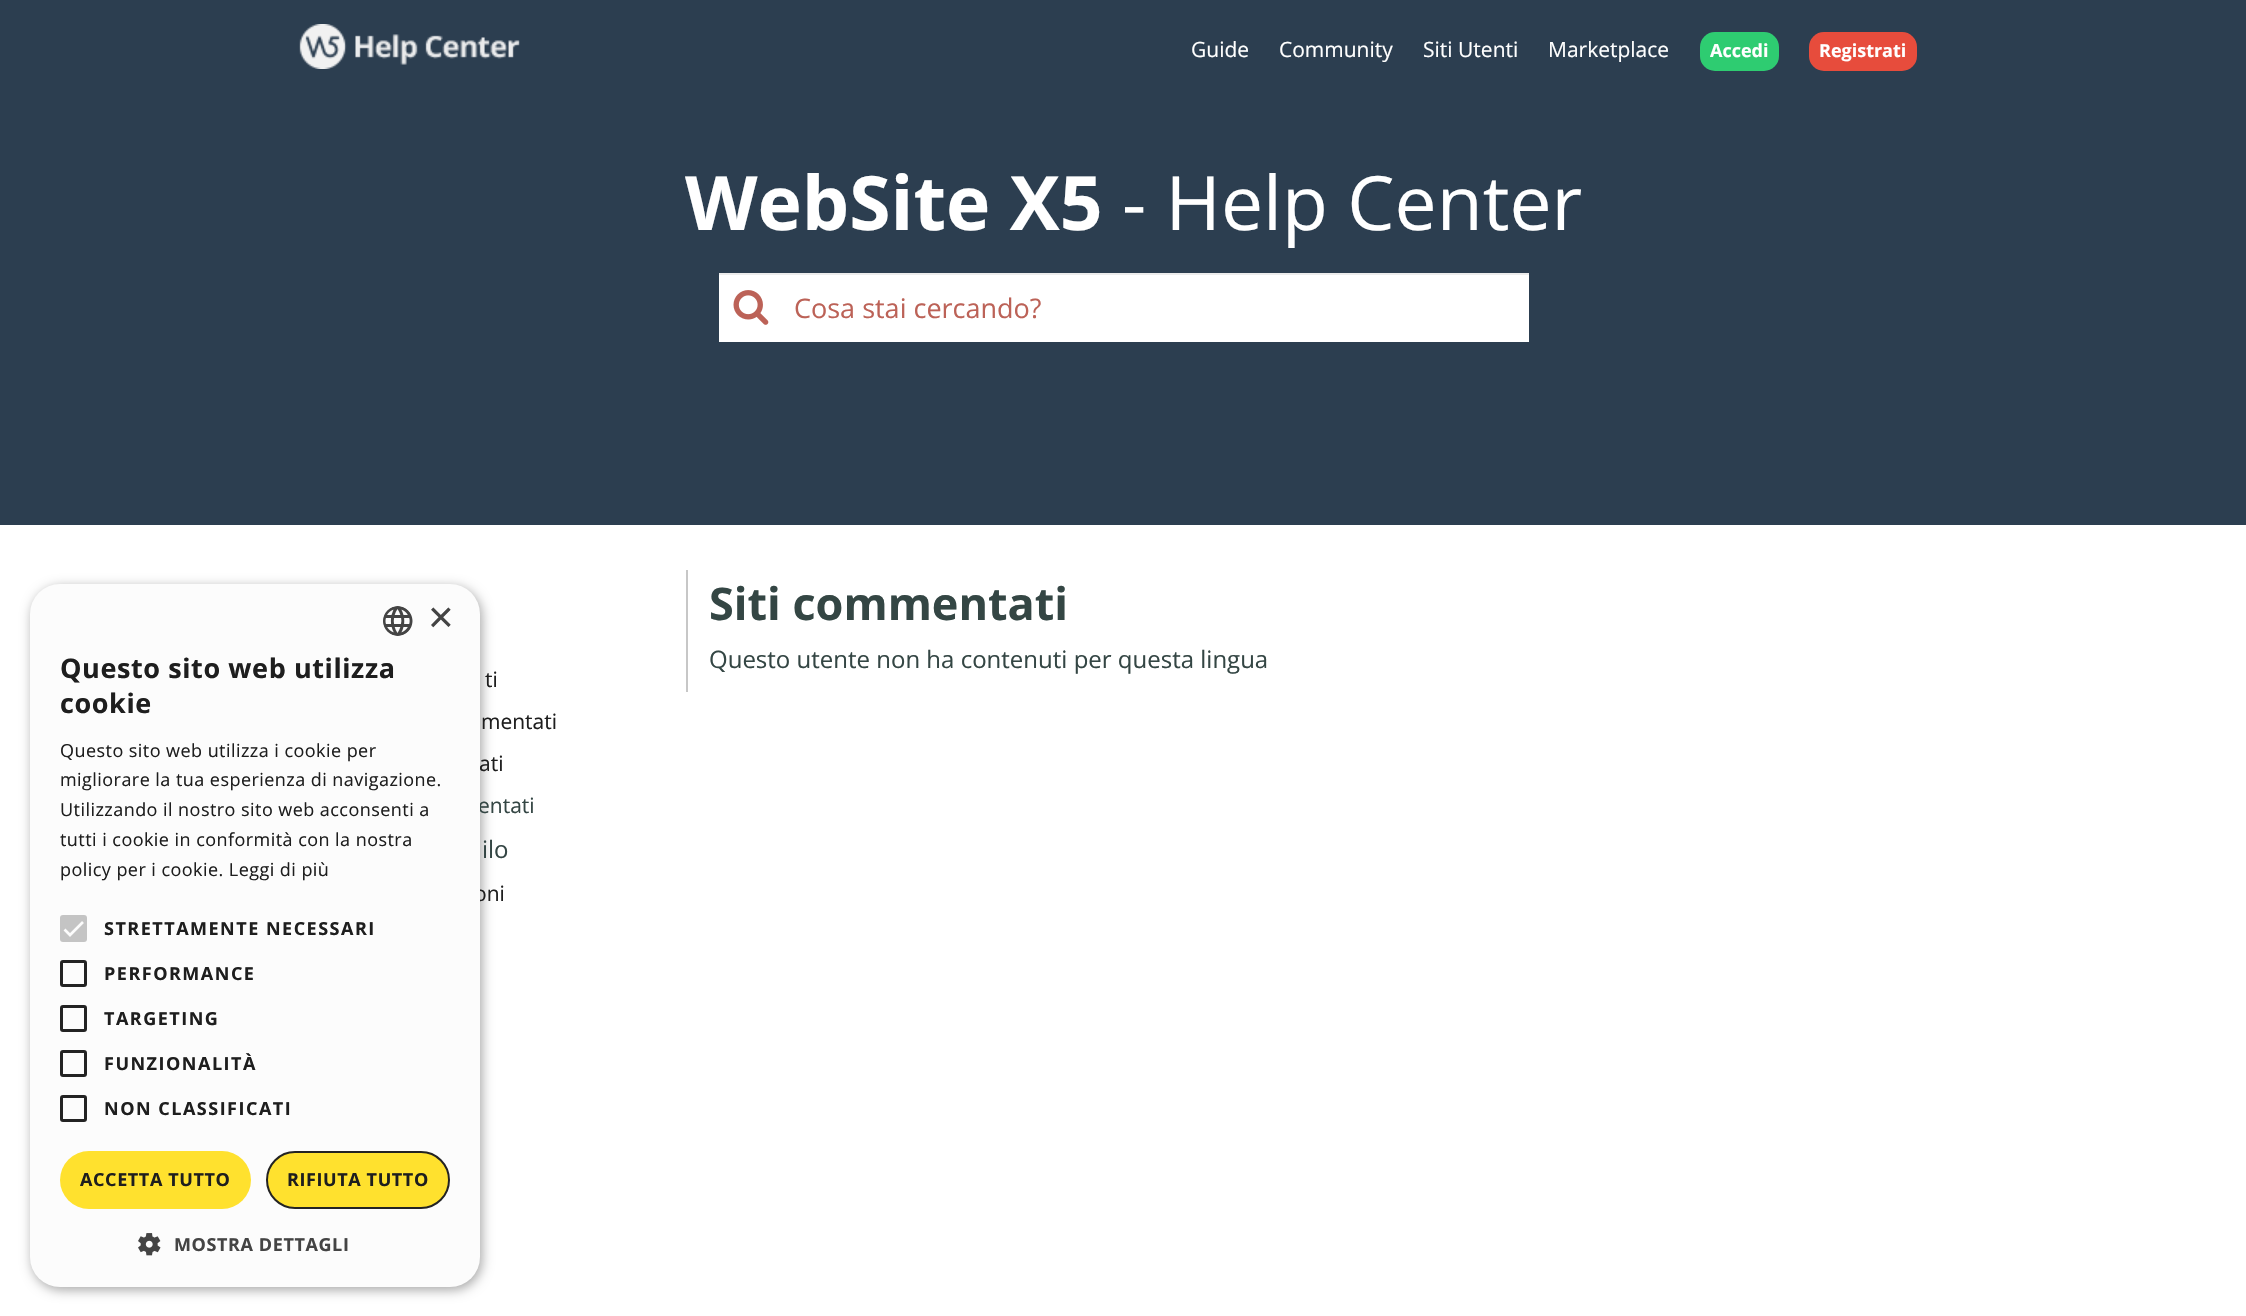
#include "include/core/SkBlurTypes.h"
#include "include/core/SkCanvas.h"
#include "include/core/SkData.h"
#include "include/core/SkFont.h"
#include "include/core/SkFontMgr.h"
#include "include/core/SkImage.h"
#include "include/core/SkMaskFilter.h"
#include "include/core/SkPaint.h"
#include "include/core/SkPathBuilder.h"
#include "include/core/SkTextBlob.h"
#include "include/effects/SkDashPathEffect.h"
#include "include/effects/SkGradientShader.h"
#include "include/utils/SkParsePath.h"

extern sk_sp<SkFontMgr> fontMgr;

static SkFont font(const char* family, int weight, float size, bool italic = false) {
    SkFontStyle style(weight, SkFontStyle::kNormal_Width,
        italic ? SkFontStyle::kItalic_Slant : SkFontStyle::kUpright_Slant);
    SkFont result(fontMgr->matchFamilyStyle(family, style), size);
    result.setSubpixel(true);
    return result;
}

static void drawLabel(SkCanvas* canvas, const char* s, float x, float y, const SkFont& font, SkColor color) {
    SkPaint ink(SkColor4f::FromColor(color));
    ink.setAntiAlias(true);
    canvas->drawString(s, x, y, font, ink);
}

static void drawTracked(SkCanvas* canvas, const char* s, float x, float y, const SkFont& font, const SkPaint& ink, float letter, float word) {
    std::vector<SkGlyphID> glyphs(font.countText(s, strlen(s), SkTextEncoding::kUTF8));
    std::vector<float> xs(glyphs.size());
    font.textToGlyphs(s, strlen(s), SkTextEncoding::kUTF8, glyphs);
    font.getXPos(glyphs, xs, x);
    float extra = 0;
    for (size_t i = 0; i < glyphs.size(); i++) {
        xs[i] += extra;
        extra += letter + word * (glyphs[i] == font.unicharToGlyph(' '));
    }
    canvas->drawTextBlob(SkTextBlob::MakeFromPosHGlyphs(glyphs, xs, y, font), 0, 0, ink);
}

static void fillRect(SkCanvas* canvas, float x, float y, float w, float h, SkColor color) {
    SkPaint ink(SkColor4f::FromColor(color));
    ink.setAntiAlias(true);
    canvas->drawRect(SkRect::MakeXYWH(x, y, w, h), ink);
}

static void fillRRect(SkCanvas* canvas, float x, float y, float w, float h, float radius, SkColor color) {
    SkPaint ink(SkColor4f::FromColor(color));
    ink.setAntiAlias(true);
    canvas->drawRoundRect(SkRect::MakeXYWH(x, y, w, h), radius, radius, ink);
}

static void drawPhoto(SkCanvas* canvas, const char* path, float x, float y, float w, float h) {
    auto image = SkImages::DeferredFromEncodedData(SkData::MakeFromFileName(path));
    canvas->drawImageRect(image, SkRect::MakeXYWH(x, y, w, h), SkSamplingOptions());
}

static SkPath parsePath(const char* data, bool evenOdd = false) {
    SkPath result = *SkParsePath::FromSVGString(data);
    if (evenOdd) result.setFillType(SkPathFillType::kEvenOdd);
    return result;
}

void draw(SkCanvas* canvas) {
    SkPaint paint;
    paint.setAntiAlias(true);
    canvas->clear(0xFFFFFFFF);
    fillRect(canvas, 0, 0, 2246, 525, 0xFF2C3E50);
    drawPhoto(canvas, "assets/img1.png", 299, 24, 221, 45);
    SkFont font1 = font("Open Sans", 400, 21);
    drawLabel(canvas, "Guide", 1191, 57, font1, 0xFFFFFFFF);
    drawLabel(canvas, "Community", 1279, 57, font1, 0xFFFFFFFF);
    drawLabel(canvas, "Siti Utenti", 1423, 57, font1, 0xFFFFFFFF);
    drawLabel(canvas, "Marketplace", 1548, 57, font1, 0xFFFFFFFF);
    fillRRect(canvas, 1700, 32, 79, 39, 15, 0xFF2ECC71);
    SkFont font2 = font("Open Sans", 700, 18);
    drawLabel(canvas, "Accedi", 1710, 57, font2, 0xFFFFFFFF);
    fillRRect(canvas, 1809, 32, 108, 39, 15, 0xFFE74C3C);
    drawLabel(canvas, "Registrati", 1819, 57, font2, 0xFFFFFFFF);
    SkFont font3 = font("Open Sans", 700, 75);
    drawLabel(canvas, "WebSite X5", 685, 230, font3, 0xFFFFFFFF);
    SkFont font4 = font("Open Sans", 400, 75);
    drawLabel(canvas, "- Help Center", 1122, 230, font4, 0xFFFFFFFF);
    fillRect(canvas, 719, 275, 810, 67, 0xFFFFFFFF);
    drawPhoto(canvas, "assets/img2.png", 733, 290, 36, 35);
    fillRect(canvas, 719, 273, 810, 2, 0xFFECECEC);
    SkFont font5 = font("Open Sans", 400, 27);
    drawLabel(canvas, "Cosa stai cercando?", 794, 318, font5, 0xFFBC6257);
    paint.setColor(0x59000000);
    paint.setMaskFilter(SkMaskFilter::MakeBlur(kNormal_SkBlurStyle, 6));
    canvas->drawRoundRect(SkRect::MakeXYWH(32, 587, 450, 703), 30, 30, paint);
    paint.setMaskFilter(nullptr);
    drawLabel(canvas, "entati", 478, 813, font1, 0xFF344644);
    drawLabel(canvas, "oni", 474, 901, font1, 0xFF1E1E1E);
    fillRRect(canvas, 30, 584, 450, 703, 30, 0xFFFCFCFC);
    drawPhoto(canvas, "assets/img3.png", 383, 606, 30, 30);
    SkFont font6 = font("Liberation Sans", 400, 44);
    drawLabel(canvas, "×", 428, 632, font6, 0xFF444444);
    SkFont font7 = font("Open Sans", 700, 27);
    paint.setColor(0xFF1E1E1E);
    drawTracked(canvas, "Questo sito web utilizza", 60, 678, font7, paint, 0.6f, 0);
    drawTracked(canvas, "cookie", 60, 713, font7, paint, 0.6f, 0);
    SkFont font8 = font("Open Sans", 400, 18);
    drawTracked(canvas, "Questo sito web utilizza i cookie per", 60, 757, font8, paint, 0.45f, 0);
    drawTracked(canvas, "migliorare la tua esperienza di navigazione.", 60, 786, font8, paint, 0.45f, 0);
    drawTracked(canvas, "Utilizzando il nostro sito web acconsenti a", 60, 816, font8, paint, 0.45f, 0);
    drawTracked(canvas, "tutti i cookie in conformità con la nostra", 60, 846, font8, paint, 0.45f, 0);
    drawTracked(canvas, "policy per i cookie. Leggi di più", 60, 876, font8, paint, 0.45f, 0);
    fillRRect(canvas, 60, 915, 27, 27, 3, 0xFFC4C4C4);
    paint.setStroke(true);
    paint.setStrokeWidth(2.7f);
    paint.setColor(0xFFFCFCFC);
    canvas->drawPath(parsePath("M64.5 929.5L70 935L83 922"), paint);
    paint.setStroke(false);
    paint.setColor(0xFF1E1E1E);
    drawTracked(canvas, "STRETTAMENTE NECESSARI", 104, 935, font2, paint, 1.5f, 0);
    paint.setStroke(true);
    paint.setStrokeWidth(3);
    paint.setColor(0xFF232323);
    canvas->drawRoundRect(SkRect::MakeXYWH(61.5f, 961.5f, 24, 24), 1.5f, 1.5f, paint);
    paint.setStroke(false);
    paint.setColor(0xFF1E1E1E);
    drawTracked(canvas, "PERFORMANCE", 104, 980, font2, paint, 1.5f, 0);
    paint.setStroke(true);
    paint.setColor(0xFF232323);
    canvas->drawRoundRect(SkRect::MakeXYWH(61.5f, 1006.5f, 24, 24), 1.5f, 1.5f, paint);
    paint.setStroke(false);
    paint.setColor(0xFF1E1E1E);
    drawTracked(canvas, "TARGETING", 104, 1025, font2, paint, 1.5f, 0);
    paint.setStroke(true);
    paint.setColor(0xFF232323);
    canvas->drawRoundRect(SkRect::MakeXYWH(61.5f, 1051.5f, 24, 24), 1.5f, 1.5f, paint);
    paint.setStroke(false);
    paint.setColor(0xFF1E1E1E);
    drawTracked(canvas, "FUNZIONALITÀ", 104, 1070, font2, paint, 1.5f, 0);
    paint.setStroke(true);
    paint.setColor(0xFF232323);
    canvas->drawRoundRect(SkRect::MakeXYWH(61.5f, 1096.5f, 24, 24), 1.5f, 1.5f, paint);
    paint.setStroke(false);
    paint.setColor(0xFF1E1E1E);
    drawTracked(canvas, "NON CLASSIFICATI", 104, 1115, font2, paint, 1.5f, 0);
    fillRRect(canvas, 60, 1151, 191, 58, 29, 0xFFFFE12E);
    drawTracked(canvas, "ACCETTA TUTTO", 80, 1186, font2, paint, 0.6f, 0);
    paint.setColor(0xFFFFE12E);
    canvas->drawRoundRect(SkRect::MakeXYWH(267, 1152, 182, 56), 28, 28, paint);
    paint.setStroke(true);
    paint.setStrokeWidth(2);
    paint.setColor(0xFF232323);
    canvas->drawRoundRect(SkRect::MakeXYWH(267, 1152, 182, 56), 28, 28, paint);
    paint.setStroke(false);
    paint.setColor(0xFF1E1E1E);
    drawTracked(canvas, "RIFIUTA TUTTO", 287, 1186, font2, paint, 0.6f, 0);
    drawPhoto(canvas, "assets/img4.png", 138, 1233, 23, 23);
    paint.setColor(0xFF444444);
    drawTracked(canvas, "MOSTRA DETTAGLI", 174, 1251, font2, paint, 0.6f, 0);
    fillRect(canvas, 686, 570, 2, 122, 0xFFC7C7C7);
    SkFont font9 = font("Open Sans", 700, 45);
    drawLabel(canvas, "Siti commentati", 709, 620, font9, 0xFF344644);
    SkFont font10 = font("Open Sans", 400, 24);
    drawLabel(canvas, "Questo utente non ha contenuti per questa lingua", 709, 668, font10, 0xFF344644);
    drawLabel(canvas, "ti", 485, 687, font1, 0xFF1E1E1E);
    drawLabel(canvas, "mentati", 481, 729, font1, 0xFF1E1E1E);
    drawLabel(canvas, "ati", 479, 771, font1, 0xFF1E1E1E);
    drawLabel(canvas, "ilo", 482, 858, font10, 0xFF344644);
}
